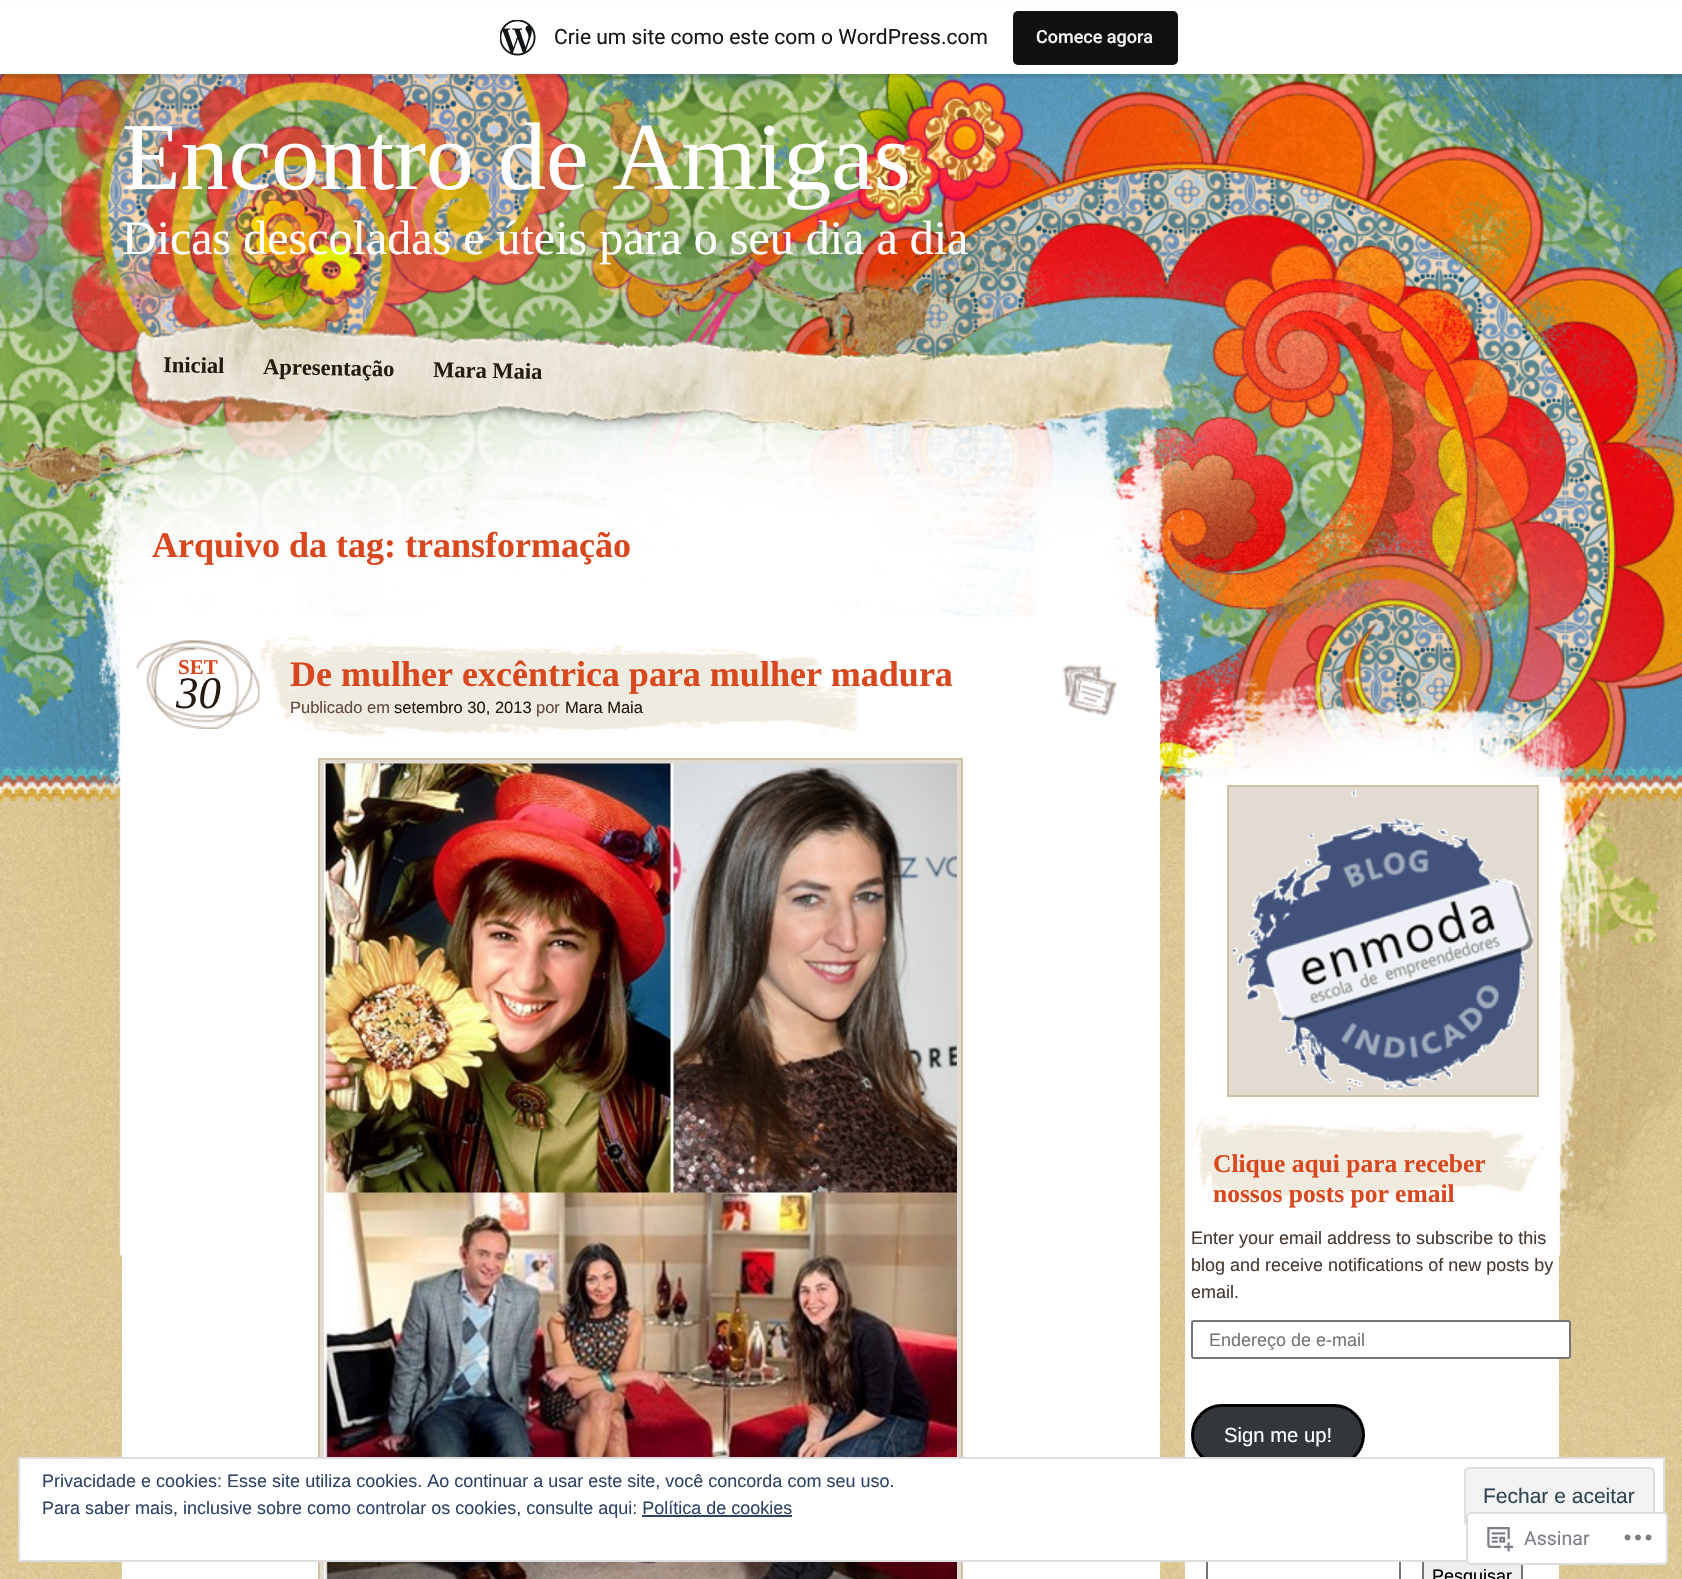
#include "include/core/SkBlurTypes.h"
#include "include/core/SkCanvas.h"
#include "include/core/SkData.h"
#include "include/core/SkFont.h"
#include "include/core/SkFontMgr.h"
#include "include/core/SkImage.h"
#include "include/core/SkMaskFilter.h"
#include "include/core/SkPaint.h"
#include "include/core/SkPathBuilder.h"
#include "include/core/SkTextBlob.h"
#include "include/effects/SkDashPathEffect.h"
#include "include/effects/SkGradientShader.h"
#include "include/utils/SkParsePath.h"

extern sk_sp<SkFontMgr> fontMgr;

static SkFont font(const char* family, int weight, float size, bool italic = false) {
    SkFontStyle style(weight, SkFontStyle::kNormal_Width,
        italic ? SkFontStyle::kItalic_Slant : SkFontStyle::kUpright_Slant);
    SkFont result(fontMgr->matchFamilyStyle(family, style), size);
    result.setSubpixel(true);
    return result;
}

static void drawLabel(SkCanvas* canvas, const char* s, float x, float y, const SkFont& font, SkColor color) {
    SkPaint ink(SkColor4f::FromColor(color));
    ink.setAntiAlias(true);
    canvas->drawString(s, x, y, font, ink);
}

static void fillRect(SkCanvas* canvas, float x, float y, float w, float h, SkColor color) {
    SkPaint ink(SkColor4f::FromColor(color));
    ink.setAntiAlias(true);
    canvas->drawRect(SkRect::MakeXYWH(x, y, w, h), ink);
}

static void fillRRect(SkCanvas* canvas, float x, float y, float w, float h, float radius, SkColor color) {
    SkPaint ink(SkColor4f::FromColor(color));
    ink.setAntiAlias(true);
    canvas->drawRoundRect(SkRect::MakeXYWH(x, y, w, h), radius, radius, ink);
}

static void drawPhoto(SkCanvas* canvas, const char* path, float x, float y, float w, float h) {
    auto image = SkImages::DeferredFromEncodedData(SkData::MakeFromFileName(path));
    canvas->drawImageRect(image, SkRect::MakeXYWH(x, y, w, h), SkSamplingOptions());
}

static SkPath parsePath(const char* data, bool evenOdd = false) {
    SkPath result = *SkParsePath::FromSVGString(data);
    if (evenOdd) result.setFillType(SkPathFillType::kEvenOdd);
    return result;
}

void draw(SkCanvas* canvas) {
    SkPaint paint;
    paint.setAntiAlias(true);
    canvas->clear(0xFFFFFFFF);
    drawPhoto(canvas, "assets/img1.png", 0, 1398, 1682, 181);
    drawPhoto(canvas, "assets/img3.png", 0, 74, 1682, 1324);
    paint.setColor(0x0D000000);
    paint.setMaskFilter(SkMaskFilter::MakeBlur(kNormal_SkBlurStyle, 1.5f));
    canvas->drawRect(SkRect::MakeXYWH(0, 2, 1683, 73), paint);
    paint.setMaskFilter(nullptr);
    paint.setColor(0x14000000);
    canvas->drawPath(parsePath("M2 74V78H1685V5H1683V74Z"), paint);
    fillRect(canvas, 0, 1, 1682, 73, 0xFFFFFFFF);
    drawPhoto(canvas, "assets/img2.png", 500, 20, 36, 36);
    SkFont font1 = font("Roboto", 400, 21);
    drawLabel(canvas, "Crie um site como este com o WordPress.com", 554, 44, font1, 0xFF171717);
    fillRRect(canvas, 1013, 11, 165, 54, 5, 0xFF111111);
    SkFont font2 = font("Roboto", 500, 18);
    drawLabel(canvas, "Comece agora", 1036, 43, font2, 0xFFF6F7F7);
    SkFont font3 = font("Liberation Serif", 400, 96);
    drawLabel(canvas, "Encontro de Amigas", 122, 189, font3, 0xFFFFFFFF);
    SkFont font4 = font("Liberation Serif", 400, 48);
    drawLabel(canvas, "Dicas descoladas e úteis para o seu dia a dia", 122, 254, font4, 0xFFFFFFFF);
    drawPhoto(canvas, "assets/img5.png", 52, 357, 1549, 899);
    drawPhoto(canvas, "assets/img4.png", 133, 315, 1042, 116);
    SkFont font5 = font("Liberation Serif", 700, 22.5f);
    canvas->save();
    canvas->rotate(1, 163, 372);
    drawLabel(canvas, "Inicial", 163, 372, font5, 0xFF261A11);
    canvas->restore();
    canvas->save();
    canvas->rotate(1, 263, 374);
    drawLabel(canvas, "Apresentação", 263, 374, font5, 0xFF261A11);
    canvas->restore();
    canvas->save();
    canvas->rotate(1, 433, 377);
    drawLabel(canvas, "Mara Maia", 433, 377, font5, 0xFF261A11);
    canvas->restore();
    fillRect(canvas, 122, 668, 1038, 911, 0xFFFFFFFF);
    SkFont font6 = font("Liberation Serif", 700, 36);
    drawLabel(canvas, "Arquivo da tag: transformação", 152, 557, font6, 0xFFD8471D);
    drawPhoto(canvas, "assets/img6.png", 136, 640, 124, 89);
    SkFont font7 = font("Liberation Serif", 700, 21);
    drawLabel(canvas, "SET", 178, 674, font7, 0xFFD8471D);
    SkFont font8 = font("Liberation Serif", 400, 45, true);
    drawLabel(canvas, "30", 176, 708, font8, 0xFF261A11);
    drawPhoto(canvas, "assets/img7.png", 259, 636, 604, 102);
    drawLabel(canvas, "De mulher excêntrica para mulher madura", 290, 686, font6, 0xFFD8471D);
    SkFont font9 = font("Liberation Sans", 400, 16.5f);
    drawLabel(canvas, "Publicado em", 290, 713, font9, 0xFF644A3D);
    drawLabel(canvas, "setembro 30, 2013", 394, 713, font9, 0xFF261A11);
    drawLabel(canvas, "por", 536, 713, font9, 0xFF644A3D);
    drawLabel(canvas, "Mara Maia", 565, 713, font9, 0xFF261A11);
    drawPhoto(canvas, "assets/img8.png", 1062, 664, 56, 53);
    paint.setColor(0xFFE2DBD1);
    canvas->drawRect(SkRect::MakeXYWH(319, 759, 643, 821), paint);
    paint.setStroke(true);
    paint.setStrokeWidth(2);
    paint.setColor(0xFFD1BFA6);
    canvas->drawRect(SkRect::MakeXYWH(319, 759, 643, 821), paint);
    drawPhoto(canvas, "assets/img9.png", 324, 763, 633, 816);
    fillRect(canvas, 1185, 833, 374, 746, 0xFFFFFFFF);
    paint.setStroke(false);
    paint.setColor(0xFFE2DBD1);
    canvas->drawRect(SkRect::MakeXYWH(1228, 786, 310, 310), paint);
    paint.setStroke(true);
    paint.setColor(0xFFD1BFA6);
    canvas->drawRect(SkRect::MakeXYWH(1228, 786, 310, 310), paint);
    drawPhoto(canvas, "assets/img10.png", 1233, 790, 300, 301);
    drawPhoto(canvas, "assets/img11.png", 1192, 1116, 352, 86);
    SkFont font10 = font("Liberation Serif", 700, 25.5f);
    drawLabel(canvas, "Clique aqui para receber", 1213, 1172, font10, 0xFFD8471D);
    drawLabel(canvas, "nossos posts por email", 1213, 1202, font10, 0xFFD8471D);
    SkFont font11 = font("Liberation Sans", 400, 18);
    drawLabel(canvas, "Enter your email address to subscribe to this", 1191, 1244, font11, 0xFF463B33);
    drawLabel(canvas, "blog and receive notifications of new posts by", 1191, 1271, font11, 0xFF463B33);
    drawLabel(canvas, "email.", 1191, 1298, font11, 0xFF463B33);
    paint.setStroke(false);
    paint.setColor(0xFFFFFFFF);
    canvas->drawRoundRect(SkRect::MakeXYWH(1192, 1321, 378, 37), 2, 2, paint);
    paint.setStroke(true);
    paint.setColor(0xFF767676);
    canvas->drawRoundRect(SkRect::MakeXYWH(1192, 1321, 378, 37), 2, 2, paint);
    drawLabel(canvas, "Endereço de e-mail", 1209, 1346, font11, 0xFF757575);
    paint.setStroke(false);
    paint.setColor(0xFF32373C);
    canvas->drawRoundRect(SkRect::MakeXYWH(1192.5f, 1405.5f, 171, 59), 29.5f, 29.5f, paint);
    paint.setStroke(true);
    paint.setStrokeWidth(3);
    paint.setColor(0xFF000000);
    canvas->drawRoundRect(SkRect::MakeXYWH(1192.5f, 1405.5f, 171, 59), 29.5f, 29.5f, paint);
    SkFont font12 = font("Liberation Sans", 400, 20.25f);
    drawLabel(canvas, "Sign me up!", 1224, 1442, font12, 0xFFFFFFFF);
    paint.setStrokeWidth(2);
    paint.setColor(0xFF767676);
    canvas->drawRect(SkRect::MakeXYWH(1207, 1554, 193, 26), paint);
    fillRect(canvas, 1424, 1562, 97, 17, 0xFFEFEFEF);
    canvas->drawRect(SkRect::MakeXYWH(1423, 1555, 99, 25), paint);
    drawLabel(canvas, "Pesquisar", 1432, 1582, font11, 0xFF000000);
    paint.setStroke(false);
    paint.setColor(0xFFFFFFFF);
    canvas->drawRect(SkRect::MakeXYWH(19, 1458, 1645, 103), paint);
    paint.setStroke(true);
    paint.setColor(0xFFDEDEDE);
    canvas->drawRect(SkRect::MakeXYWH(19, 1458, 1645, 103), paint);
    drawLabel(canvas, "Privacidade e cookies: Esse site utiliza cookies. Ao continuar a usar este site, você concorda com seu uso.", 42, 1487, font11, 0xFF2E4467);
    paint.setStroke(false);
    paint.setColor(0xFFF3F3F3);
    canvas->drawRoundRect(SkRect::MakeXYWH(1465, 1468, 189, 57), 4, 4, paint);
    paint.setStroke(true);
    paint.setColor(0xFFDEDEDE);
    canvas->drawRoundRect(SkRect::MakeXYWH(1465, 1468, 189, 57), 4, 4, paint);
    SkFont font13 = font("Liberation Sans", 400, 21);
    drawLabel(canvas, "Fechar e aceitar", 1483, 1503, font13, 0xFF2E4453);
    drawLabel(canvas, "Para saber mais, inclusive sobre como controlar os cookies, consulte aqui: Política de cookies", 42, 1514, font11, 0xFF2E4467);
    fillRect(canvas, 642, 1515, 150, 2, 0xFF2E4467);
    fillRRect(canvas, 1466, 1512, 202, 53, 5, 0xFAFFFFFF);
    paint.setColor(0xFADCDCDE);
    canvas->drawRoundRect(SkRect::MakeXYWH(1467, 1513, 200, 51), 4, 4, paint);
    drawPhoto(canvas, "assets/img12.png", 1487, 1527, 27, 25);
    SkFont font14 = font("Roboto", 400, 19.5f);
    drawLabel(canvas, "Assinar", 1524, 1545, font14, 0xFF7B7F85);
    drawPhoto(canvas, "assets/img13.png", 1624, 1534, 28, 7);
}
